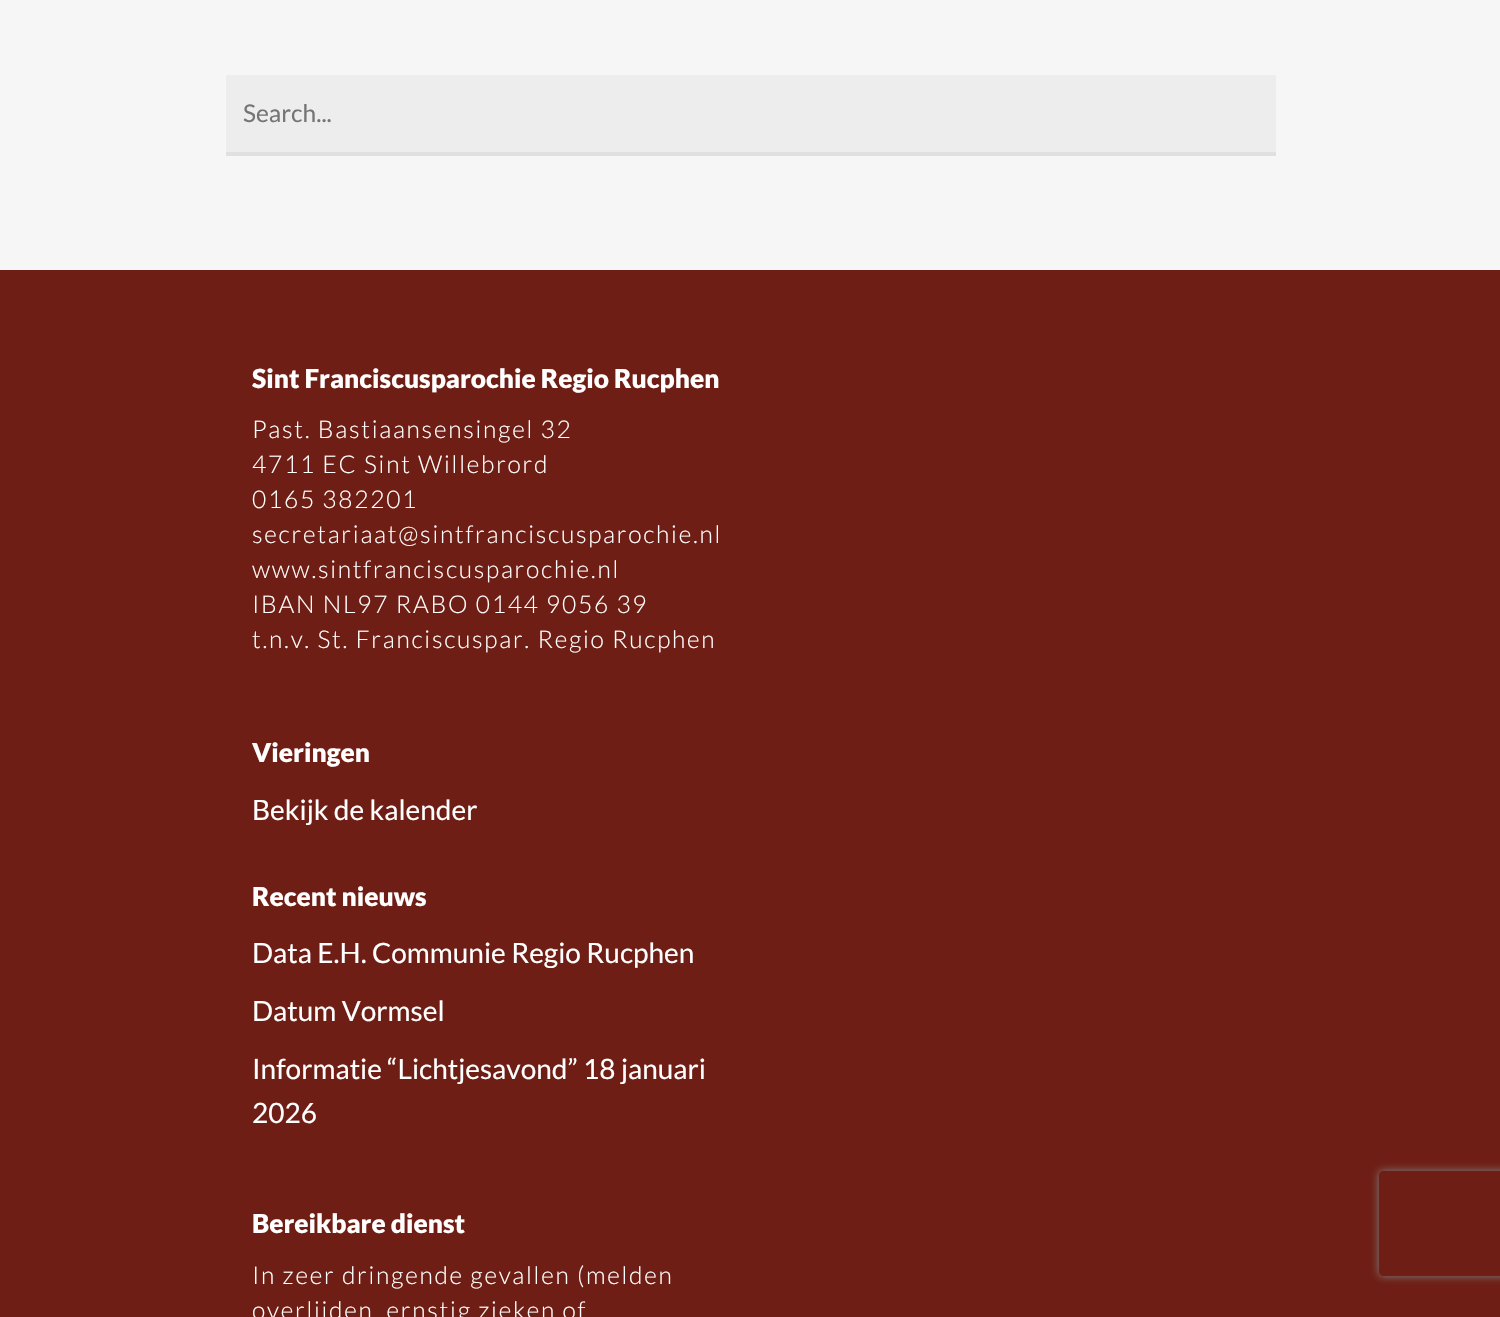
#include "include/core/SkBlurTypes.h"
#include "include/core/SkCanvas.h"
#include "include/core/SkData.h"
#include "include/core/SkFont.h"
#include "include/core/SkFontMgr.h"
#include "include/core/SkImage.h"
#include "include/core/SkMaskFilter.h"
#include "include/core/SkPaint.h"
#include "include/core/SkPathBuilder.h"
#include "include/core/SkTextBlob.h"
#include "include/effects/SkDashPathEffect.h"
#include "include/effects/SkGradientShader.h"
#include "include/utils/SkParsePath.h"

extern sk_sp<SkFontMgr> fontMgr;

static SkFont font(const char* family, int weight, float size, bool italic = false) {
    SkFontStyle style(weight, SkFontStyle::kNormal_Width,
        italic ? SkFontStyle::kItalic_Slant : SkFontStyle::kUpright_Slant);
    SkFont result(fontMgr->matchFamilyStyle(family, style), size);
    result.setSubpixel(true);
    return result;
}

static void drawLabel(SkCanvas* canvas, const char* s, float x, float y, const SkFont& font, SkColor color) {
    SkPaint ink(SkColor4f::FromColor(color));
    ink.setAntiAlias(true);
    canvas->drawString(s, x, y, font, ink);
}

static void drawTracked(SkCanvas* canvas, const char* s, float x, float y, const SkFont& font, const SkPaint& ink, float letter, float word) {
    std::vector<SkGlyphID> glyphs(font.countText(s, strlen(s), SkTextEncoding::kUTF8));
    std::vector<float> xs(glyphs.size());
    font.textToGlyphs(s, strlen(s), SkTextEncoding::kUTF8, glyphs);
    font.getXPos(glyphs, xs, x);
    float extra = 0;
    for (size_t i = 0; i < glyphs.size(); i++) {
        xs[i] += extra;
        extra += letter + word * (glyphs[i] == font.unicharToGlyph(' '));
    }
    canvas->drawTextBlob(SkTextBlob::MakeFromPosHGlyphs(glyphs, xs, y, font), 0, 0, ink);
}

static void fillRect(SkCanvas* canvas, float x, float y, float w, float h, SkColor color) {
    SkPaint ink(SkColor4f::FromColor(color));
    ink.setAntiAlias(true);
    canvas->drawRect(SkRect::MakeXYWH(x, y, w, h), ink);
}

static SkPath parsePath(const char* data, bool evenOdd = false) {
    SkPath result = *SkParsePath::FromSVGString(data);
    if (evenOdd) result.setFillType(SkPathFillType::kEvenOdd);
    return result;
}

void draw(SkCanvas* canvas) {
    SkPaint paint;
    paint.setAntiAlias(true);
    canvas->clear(0xFF6E1E14);
    fillRect(canvas, 0, 0, 1500, 270, 0xFFF6F6F6);
    fillRect(canvas, 226, 75, 1050, 77, 0xFFEDEDED);
    fillRect(canvas, 226, 152, 1050, 4, 0xFFE0E0E0);
    SkFont font1 = font("Lato", 400, 24.5f);
    drawLabel(canvas, "Search...", 243, 122, font1, 0xFF757575);
    SkFont font2 = font("Lato", 900, 26.25f);
    drawLabel(canvas, "Sint Franciscusparochie Regio Rucphen", 252, 388, font2, 0xFFFFFFFF);
    SkFont font3 = font("Lato", 300, 24.5f);
    paint.setColor(0xFFFFFFFF);
    drawTracked(canvas, "Past. Bastiaansensingel 32", 252, 438, font3, paint, 1.75f, 0);
    drawTracked(canvas, "4711 EC Sint Willebrord", 252, 473, font3, paint, 1.75f, 0);
    drawTracked(canvas, "0165 382201", 252, 508, font3, paint, 1.75f, 0);
    drawTracked(canvas, "secretariaat@sintfranciscusparochie.nl", 252, 543, font3, paint, 1.75f, 0);
    drawTracked(canvas, "www.sintfranciscusparochie.nl", 252, 578, font3, paint, 1.75f, 0);
    drawTracked(canvas, "IBAN NL97 RABO 0144 9056 39", 252, 613, font3, paint, 1.75f, 0);
    drawTracked(canvas, "t.n.v. St. Franciscuspar. Regio Rucphen", 252, 648, font3, paint, 1.75f, 0);
    drawLabel(canvas, "Vieringen", 252, 762, font2, 0xFFFFFFFF);
    SkFont font4 = font("Lato", 400, 28);
    drawLabel(canvas, "Bekijk de kalender", 252, 820, font4, 0xFFFFFFFF);
    drawLabel(canvas, "Recent nieuws", 252, 906, font2, 0xFFFFFFFF);
    drawLabel(canvas, "Data E.H. Communie Regio Rucphen", 252, 963, font4, 0xFFFFFFFF);
    drawLabel(canvas, "Datum Vormsel", 252, 1021, font4, 0xFFFFFFFF);
    drawLabel(canvas, "Informatie “Lichtjesavond” 18 januari", 252, 1079, font4, 0xFFFFFFFF);
    drawLabel(canvas, "2026", 252, 1123, font4, 0xFFFFFFFF);
    drawLabel(canvas, "Bereikbare dienst", 252, 1233, font2, 0xFFFFFFFF);
    drawTracked(canvas, "In zeer dringende gevallen (melden", 252, 1284, font3, paint, 1.75f, 0);
    drawTracked(canvas, "overlijden, ernstig zieken of", 252, 1319, font3, paint, 1.75f, 0);
    canvas->save();
    canvas->clipPath(parsePath("M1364 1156H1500V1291H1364ZM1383 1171H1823C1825 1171 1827 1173 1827 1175V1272C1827 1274 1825 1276 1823 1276H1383C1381 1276 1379 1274 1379 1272V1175C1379 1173 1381 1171 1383 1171Z", true), true);
    paint.setColor(0xFF808080);
    paint.setMaskFilter(SkMaskFilter::MakeBlur(kNormal_SkBlurStyle, 4.5f));
    canvas->drawRoundRect(SkRect::MakeXYWH(1379, 1171, 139, 105), 4, 4, paint);
    paint.setMaskFilter(nullptr);
    canvas->restore();
}
